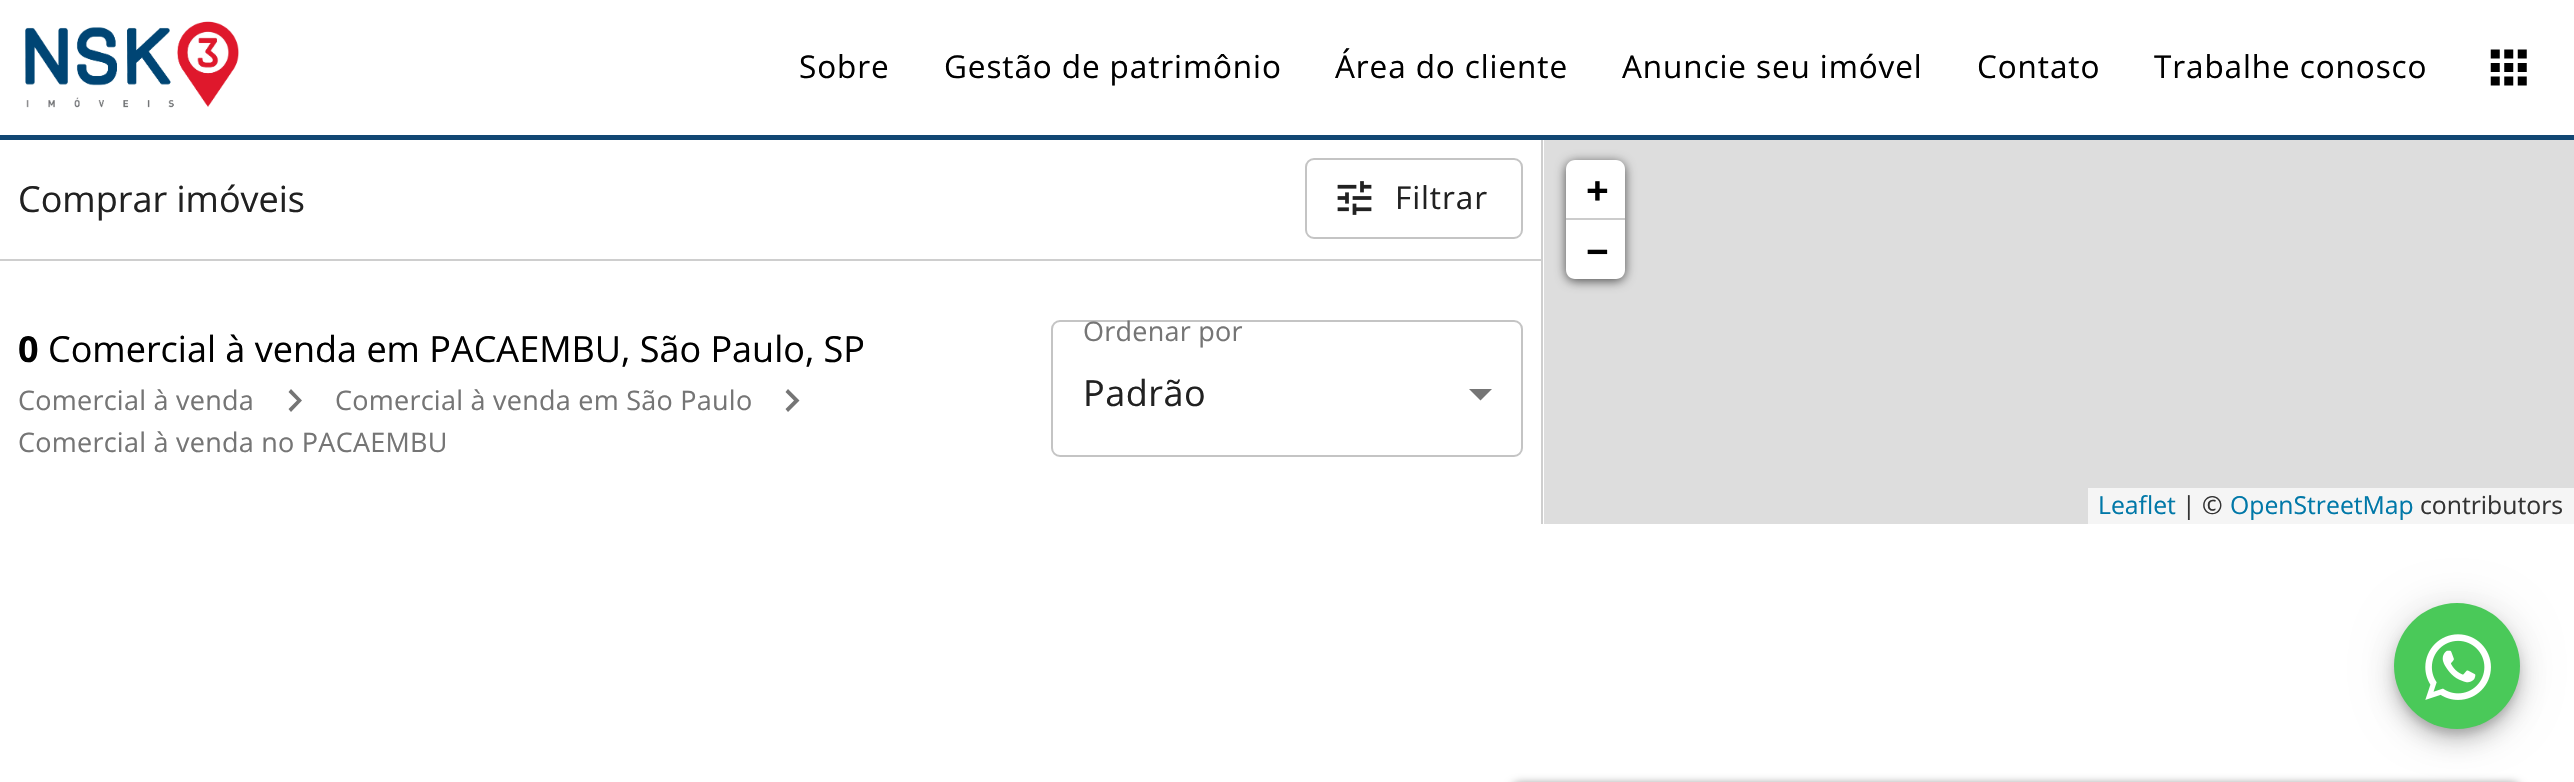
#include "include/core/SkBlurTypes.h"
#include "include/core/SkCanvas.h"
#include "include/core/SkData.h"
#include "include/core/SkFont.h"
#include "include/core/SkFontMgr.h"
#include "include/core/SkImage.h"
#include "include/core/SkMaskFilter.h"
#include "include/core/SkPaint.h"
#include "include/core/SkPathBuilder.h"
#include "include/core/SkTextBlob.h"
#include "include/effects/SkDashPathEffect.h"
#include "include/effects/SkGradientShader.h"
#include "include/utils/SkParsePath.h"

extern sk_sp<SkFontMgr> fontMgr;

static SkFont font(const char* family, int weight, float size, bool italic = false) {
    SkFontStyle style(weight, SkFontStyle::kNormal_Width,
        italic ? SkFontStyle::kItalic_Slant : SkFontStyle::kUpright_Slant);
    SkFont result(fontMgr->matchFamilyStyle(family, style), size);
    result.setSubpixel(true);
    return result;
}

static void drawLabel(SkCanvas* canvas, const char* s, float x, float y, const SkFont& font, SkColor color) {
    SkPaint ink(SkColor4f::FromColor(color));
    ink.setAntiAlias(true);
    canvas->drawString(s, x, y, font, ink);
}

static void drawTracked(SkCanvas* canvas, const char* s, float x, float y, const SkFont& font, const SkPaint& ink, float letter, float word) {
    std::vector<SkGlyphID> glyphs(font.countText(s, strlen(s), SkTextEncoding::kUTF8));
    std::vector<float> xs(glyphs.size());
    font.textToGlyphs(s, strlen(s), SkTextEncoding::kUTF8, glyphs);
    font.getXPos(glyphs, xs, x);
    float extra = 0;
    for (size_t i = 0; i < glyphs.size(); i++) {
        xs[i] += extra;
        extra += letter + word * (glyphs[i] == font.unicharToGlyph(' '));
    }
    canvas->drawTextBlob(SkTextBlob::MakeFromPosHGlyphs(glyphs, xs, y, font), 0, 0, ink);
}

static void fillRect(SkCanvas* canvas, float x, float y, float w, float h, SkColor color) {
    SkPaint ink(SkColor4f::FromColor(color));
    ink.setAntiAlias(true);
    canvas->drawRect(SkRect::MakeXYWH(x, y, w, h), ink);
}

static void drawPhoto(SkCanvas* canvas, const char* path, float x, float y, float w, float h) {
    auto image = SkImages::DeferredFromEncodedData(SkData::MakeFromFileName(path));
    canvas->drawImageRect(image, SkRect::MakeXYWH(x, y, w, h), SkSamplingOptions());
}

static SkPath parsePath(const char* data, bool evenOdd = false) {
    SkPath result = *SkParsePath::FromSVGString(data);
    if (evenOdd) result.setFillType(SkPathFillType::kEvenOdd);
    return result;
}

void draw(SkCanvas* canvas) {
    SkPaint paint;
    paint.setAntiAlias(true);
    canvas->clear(0xFFFFFFFF);
    fillRect(canvas, 1541, 137, 2, 387, 0xFFCECECE);
    fillRect(canvas, 0, 135, 2574, 5, 0xFF114773);
    drawPhoto(canvas, "assets/img1.png", 25, 21, 214, 87);
    SkFont font1 = font("Open Sans", 400, 31.5f);
    paint.setColor(0xFF000000);
    drawTracked(canvas, "Sobre", 799, 78, font1, paint, 0.9f, 0);
    drawTracked(canvas, "Gestão de patrimônio", 944, 78, font1, paint, 0.9f, 0);
    drawTracked(canvas, "Área do cliente", 1335, 78, font1, paint, 0.9f, 0);
    drawTracked(canvas, "Anuncie seu imóvel", 1622, 78, font1, paint, 0.9f, 0);
    drawTracked(canvas, "Contato", 1977, 78, font1, paint, 0.9f, 0);
    drawTracked(canvas, "Trabalhe conosco", 2154, 78, font1, paint, 0.9f, 0);
    drawPhoto(canvas, "assets/img2.png", 2490, 49, 37, 37);
    fillRect(canvas, 0, 259, 1541, 2, 0xFFCECECE);
    SkFont font2 = font("Open Sans", 400, 36);
    drawLabel(canvas, "Comprar imóveis", 18, 212, font2, 0xFF212121);
    paint.setStroke(true);
    paint.setStrokeWidth(2);
    paint.setColor(0xFFC4C4C4);
    canvas->drawRoundRect(SkRect::MakeXYWH(1306, 159, 216, 79), 8, 8, paint);
    drawPhoto(canvas, "assets/img3.png", 1337, 181, 35, 34);
    paint.setStroke(false);
    paint.setColor(0xFF212121);
    drawTracked(canvas, "Filtrar", 1395, 209, font1, paint, 0.9f, 0);
    SkFont font3 = font("Open Sans", 700, 36);
    drawLabel(canvas, "0", 18, 362, font3, 0xFF000000);
    drawLabel(canvas, "Comercial à venda em PACAEMBU, São Paulo, SP", 48, 362, font2, 0xFF000000);
    SkFont font4 = font("Open Sans", 400, 27);
    paint.setColor(0xFF757575);
    drawTracked(canvas, "Comercial à venda", 18, 410, font4, paint, 0.25f, 0);
    canvas->drawPath(parsePath("M291 389L288.5 392L297 400.5L288.5 409L291 412L302 400.5Z"), paint);
    drawTracked(canvas, "Comercial à venda em São Paulo", 335, 410, font4, paint, 0.25f, 0);
    canvas->drawPath(parsePath("M788 389L785.5 392L794 400.5L785.5 409L788 412L799.5 400.5Z"), paint);
    drawTracked(canvas, "Comercial à venda no PACAEMBU", 18, 452, font4, paint, 0.25f, 0);
    canvas->drawPath(parsePath("M1469 389L1480.5 400.5L1492 389Z"), paint);
    paint.setStroke(true);
    paint.setColor(0xFFC4C4C4);
    canvas->drawRoundRect(SkRect::MakeXYWH(1052, 321, 470, 135), 8, 8, paint);
    paint.setStroke(false);
    paint.setColor(0xFF757575);
    drawTracked(canvas, "Ordenar por", 1083, 341, font4, paint, 0.25f, 0);
    paint.setColor(0xFF212121);
    drawTracked(canvas, "Padrão", 1083, 406, font2, paint, 0.5f, 0);
    fillRect(canvas, 1544, 140, 1030, 384, 0xFFDDDDDD);
    paint.setColor(0xA6000000);
    paint.setMaskFilter(SkMaskFilter::MakeBlur(kNormal_SkBlurStyle, 5.5f));
    canvas->drawRoundRect(SkRect::MakeXYWH(1566, 162, 59, 119), 9, 9, paint);
    paint.setMaskFilter(nullptr);
    paint.setColor(0xFFFFFFFF);
    canvas->drawPath(parsePath("M1575 160H1616C1621 160 1625 164 1625 169V221H1566V169C1566 164 1570 160 1575 160Z"), paint);
    fillRect(canvas, 1566, 218, 59, 2, 0xFFCCCCCC);
    SkFont font5 = font("Open Sans", 700, 40);
    drawLabel(canvas, "+", 1586, 205, font5, 0xFF000000);
    canvas->drawPath(parsePath("M1566 221H1625V270C1625 275 1621 279 1616 279H1575C1570 279 1566 275 1566 270Z"), paint);
    drawLabel(canvas, "−", 1586, 266, font5, 0xFF000000);
    fillRect(canvas, 2088, 488, 486, 36, 0xFFF5F5F5);
    SkFont font6 = font("Open Sans", 400, 24.75f);
    drawLabel(canvas, "Leaflet", 2098, 514, font6, 0xFF0078A8);
    drawLabel(canvas, "| ©", 2182, 514, font6, 0xFF333333);
    drawLabel(canvas, "OpenStreetMap", 2230, 514, font6, 0xFF0078A8);
    drawLabel(canvas, "contributors", 2420, 514, font6, 0xFF333333);
    paint.setColor(0x1F000000);
    paint.setMaskFilter(SkMaskFilter::MakeBlur(kNormal_SkBlurStyle, 20));
    canvas->drawRoundRect(SkRect::MakeXYWH(2394, 605, 126, 126), 63, 63, paint);
    paint.setMaskFilter(nullptr);
    paint.setColor(0x24000000);
    paint.setMaskFilter(SkMaskFilter::MakeBlur(kNormal_SkBlurStyle, 11));
    canvas->drawRoundRect(SkRect::MakeXYWH(2394, 617, 126, 126), 63, 63, paint);
    paint.setMaskFilter(nullptr);
    paint.setColor(0x33000000);
    paint.setMaskFilter(SkMaskFilter::MakeBlur(kNormal_SkBlurStyle, 5.5f));
    canvas->drawRoundRect(SkRect::MakeXYWH(2396, 612, 122, 122), 61, 61, paint);
    paint.setMaskFilter(nullptr);
    paint.setColor(0xFF4AC959);
    canvas->drawCircle(2457, 666, 63, paint);
    drawPhoto(canvas, "assets/img4.png", 2425, 634, 66, 66);
    paint.setColor(0x66000000);
    paint.setMaskFilter(SkMaskFilter::MakeBlur(kNormal_SkBlurStyle, 4.5f));
    canvas->drawRoundRect(SkRect::MakeXYWH(1510, 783, 1012, 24), 11, 11, paint);
    paint.setMaskFilter(nullptr);
}
